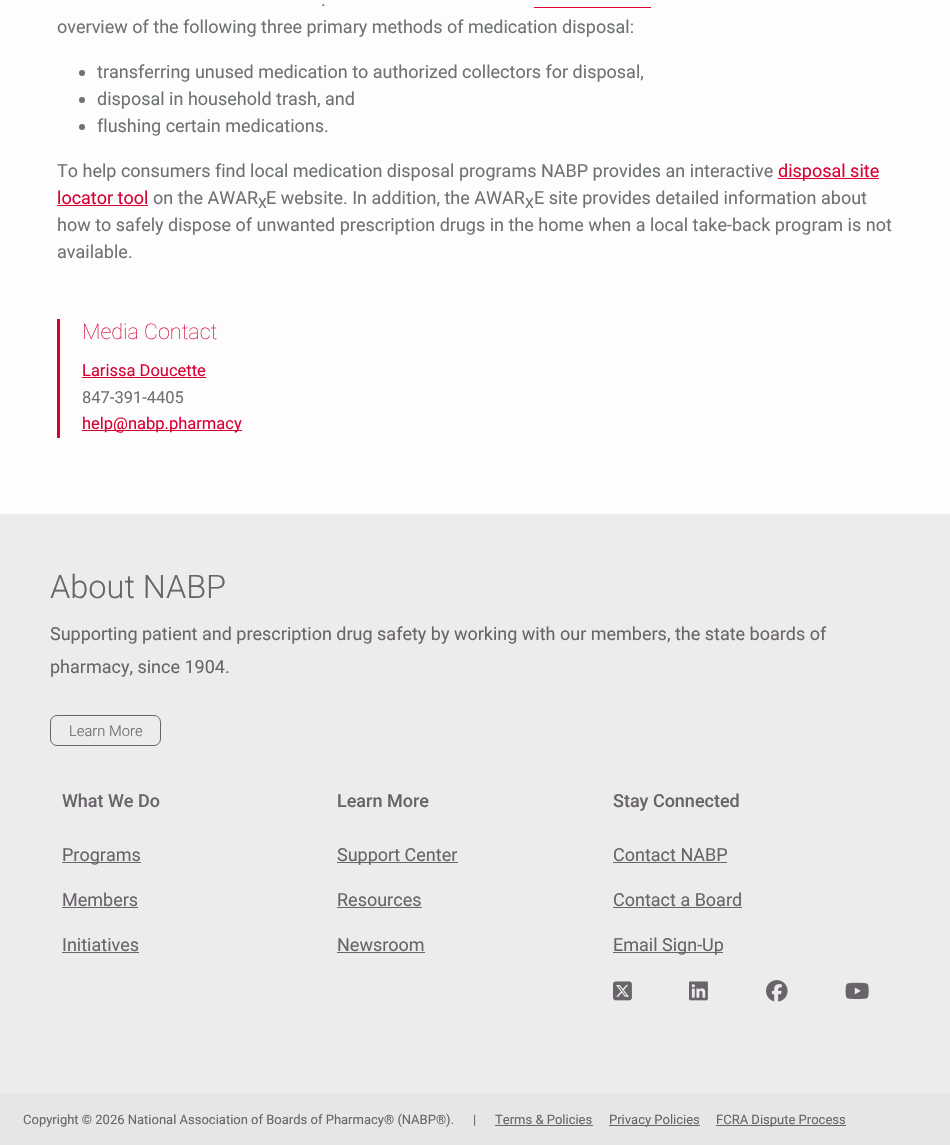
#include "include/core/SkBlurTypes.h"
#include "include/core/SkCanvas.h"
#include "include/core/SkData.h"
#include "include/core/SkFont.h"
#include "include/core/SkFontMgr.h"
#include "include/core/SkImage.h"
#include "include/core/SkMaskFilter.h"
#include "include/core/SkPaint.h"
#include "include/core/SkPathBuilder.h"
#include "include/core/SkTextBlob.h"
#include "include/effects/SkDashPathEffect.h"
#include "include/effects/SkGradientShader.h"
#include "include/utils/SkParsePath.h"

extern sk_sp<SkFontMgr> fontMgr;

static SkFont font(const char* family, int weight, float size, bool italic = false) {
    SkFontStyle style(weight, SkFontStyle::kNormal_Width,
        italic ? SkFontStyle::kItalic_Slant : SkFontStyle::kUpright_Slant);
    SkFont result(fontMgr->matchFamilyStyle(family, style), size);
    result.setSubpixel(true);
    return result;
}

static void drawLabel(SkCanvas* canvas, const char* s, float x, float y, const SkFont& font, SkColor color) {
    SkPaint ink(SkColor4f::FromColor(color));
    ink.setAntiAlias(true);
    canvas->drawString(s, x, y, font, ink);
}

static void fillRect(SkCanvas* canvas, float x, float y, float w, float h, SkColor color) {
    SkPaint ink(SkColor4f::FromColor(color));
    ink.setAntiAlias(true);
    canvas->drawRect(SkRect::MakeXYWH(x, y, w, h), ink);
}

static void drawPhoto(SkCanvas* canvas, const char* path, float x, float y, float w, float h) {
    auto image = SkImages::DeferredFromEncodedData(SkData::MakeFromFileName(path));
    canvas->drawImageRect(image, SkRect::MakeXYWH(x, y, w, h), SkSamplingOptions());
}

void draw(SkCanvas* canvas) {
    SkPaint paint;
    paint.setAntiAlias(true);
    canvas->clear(0xFFFDFDFD);
    SkFont font1 = font("Roboto", 400, 18);
    drawLabel(canvas, ".", 321, 6, font1, 0xFF6E7272);
    fillRect(canvas, 534, 7, 117, 1, 0xFFDB0032);
    drawLabel(canvas, "overview of the following three primary methods of medication disposal:", 57, 33, font1, 0xFF6E7272);
    paint.setColor(0xFF6E7272);
    canvas->drawCircle(82, 73, 3, paint);
    drawLabel(canvas, "transferring unused medication to authorized collectors for disposal,", 97, 78, font1, 0xFF6E7272);
    canvas->drawCircle(82, 100, 3, paint);
    drawLabel(canvas, "disposal in household trash, and", 97, 105, font1, 0xFF6E7272);
    canvas->drawCircle(82, 127, 3, paint);
    drawLabel(canvas, "flushing certain medications.", 97, 132, font1, 0xFF6E7272);
    drawLabel(canvas, "To help consumers find local medication disposal programs NABP provides an interactive", 57, 177, font1, 0xFF6E7272);
    fillRect(canvas, 778, 178, 101, 1, 0xFFDB0032);
    drawLabel(canvas, "disposal site", 778, 177, font1, 0xFFDB0032);
    drawLabel(canvas, "locator tool", 57, 204, font1, 0xFFDB0032);
    fillRect(canvas, 57, 205, 91, 1, 0xFFDB0032);
    drawLabel(canvas, "on the AWAR", 153, 204, font1, 0xFF6E7272);
    SkFont font2 = font("Roboto", 400, 14);
    drawLabel(canvas, "X", 258, 208, font2, 0xFF6E7272);
    drawLabel(canvas, "E website. In addition, the AWAR", 266, 204, font1, 0xFF6E7272);
    drawLabel(canvas, "X", 525, 208, font2, 0xFF6E7272);
    drawLabel(canvas, "E site provides detailed information about", 534, 204, font1, 0xFF6E7272);
    drawLabel(canvas, "how to safely dispose of unwanted prescription drugs in the home when a local take-back program is not", 57, 231, font1, 0xFF6E7272);
    drawLabel(canvas, "available.", 57, 258, font1, 0xFF6E7272);
    fillRect(canvas, 57, 319, 3, 119, 0xFFDB0032);
    SkFont font3 = font("Roboto", 100, 21.5f);
    drawLabel(canvas, "Media Contact", 82, 339, font3, 0xFFDB0032);
    SkFont font4 = font("Roboto", 400, 16.5f);
    drawLabel(canvas, "Larissa Doucette", 82, 376, font4, 0xFFDB0032);
    fillRect(canvas, 82, 377, 124, 1, 0xFFDB0032);
    drawLabel(canvas, "847-391-4405", 82, 403, font4, 0xFF6E7272);
    fillRect(canvas, 82, 430, 160, 1, 0xFFDB0032);
    drawLabel(canvas, "help@nabp.pharmacy", 82, 429, font4, 0xFFDB0032);
    fillRect(canvas, 0, 514, 950, 579, 0xFFECECEC);
    SkFont font5 = font("Roboto", 300, 32.5f);
    drawLabel(canvas, "About NABP", 50, 598, font5, 0xFF69636A);
    drawLabel(canvas, "Supporting patient and prescription drug safety by working with our members, the state boards of", 50, 640, font1, 0xFF69636A);
    drawLabel(canvas, "pharmacy, since 1904.", 50, 673, font1, 0xFF69636A);
    paint.setStroke(true);
    paint.setStrokeWidth(1);
    paint.setColor(0xFF69636A);
    canvas->drawRoundRect(SkRect::MakeXYWH(50.5f, 715.5f, 110, 30), 6.5f, 6.5f, paint);
    SkFont font6 = font("Roboto", 300, 14.75f);
    drawLabel(canvas, "Learn More", 69, 736, font6, 0xFF69636A);
    SkFont font7 = font("Roboto", 500, 18);
    drawLabel(canvas, "What We Do", 62, 807, font7, 0xFF69636A);
    fillRect(canvas, 62, 862, 79, 1, 0xFF69636A);
    drawLabel(canvas, "Programs", 62, 861, font1, 0xFF69636A);
    drawLabel(canvas, "Members", 62, 906, font1, 0xFF69636A);
    fillRect(canvas, 62, 907, 76, 1, 0xFF69636A);
    drawLabel(canvas, "Initiatives", 62, 951, font1, 0xFF69636A);
    fillRect(canvas, 62, 952, 77, 1, 0xFF69636A);
    drawLabel(canvas, "Learn More", 337, 807, font7, 0xFF69636A);
    fillRect(canvas, 337, 862, 121, 1, 0xFF69636A);
    drawLabel(canvas, "Support Center", 337, 861, font1, 0xFF69636A);
    drawLabel(canvas, "Resources", 337, 906, font1, 0xFF69636A);
    fillRect(canvas, 337, 907, 85, 1, 0xFF69636A);
    drawLabel(canvas, "Newsroom", 337, 951, font1, 0xFF69636A);
    fillRect(canvas, 337, 952, 88, 1, 0xFF69636A);
    drawLabel(canvas, "Stay Connected", 613, 807, font7, 0xFF69636A);
    drawLabel(canvas, "Contact NABP", 613, 861, font1, 0xFF69636A);
    fillRect(canvas, 613, 862, 114, 1, 0xFF69636A);
    drawLabel(canvas, "Contact a Board", 613, 906, font1, 0xFF69636A);
    fillRect(canvas, 613, 907, 129, 1, 0xFF69636A);
    fillRect(canvas, 613, 952, 110, 1, 0xFF69636A);
    drawLabel(canvas, "Email Sign-Up", 613, 951, font1, 0xFF69636A);
    drawPhoto(canvas, "assets/img1.png", 613, 981, 19, 20);
    drawPhoto(canvas, "assets/img2.png", 689, 981, 19, 20);
    drawPhoto(canvas, "assets/img3.png", 766, 980, 22, 22);
    drawPhoto(canvas, "assets/img4.png", 845, 982, 24, 17);
    fillRect(canvas, 0, 1093, 950, 52, 0xFFE7E6E7);
    SkFont font8 = font("Roboto", 400, 13);
    drawLabel(canvas, "Copyright © 2026 National Association of Boards of Pharmacy® (NABP®).", 23, 1124, font8, 0xFF69636A);
    drawLabel(canvas, "|", 473, 1124, font8, 0xFF69636A);
    drawLabel(canvas, "Terms & Policies", 495, 1124, font8, 0xFF69636A);
    fillRect(canvas, 495, 1125, 98, 1, 0xFF69636A);
    fillRect(canvas, 609, 1125, 91, 1, 0xFF69636A);
    drawLabel(canvas, "Privacy Policies", 609, 1124, font8, 0xFF69636A);
    fillRect(canvas, 716, 1125, 130, 1, 0xFF69636A);
    drawLabel(canvas, "FCRA Dispute Process", 716, 1124, font8, 0xFF69636A);
}
